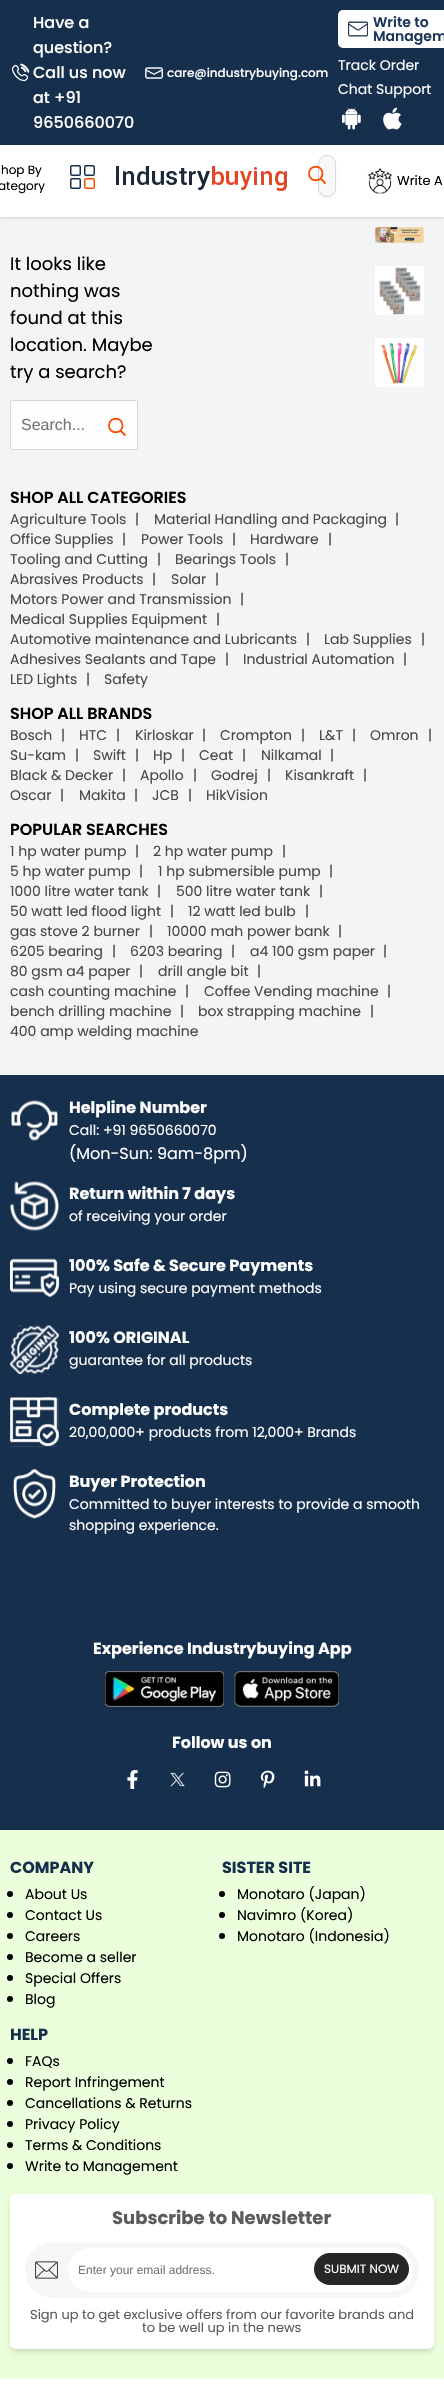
#include "include/core/SkBlurTypes.h"
#include "include/core/SkCanvas.h"
#include "include/core/SkData.h"
#include "include/core/SkFont.h"
#include "include/core/SkFontMgr.h"
#include "include/core/SkImage.h"
#include "include/core/SkMaskFilter.h"
#include "include/core/SkPaint.h"
#include "include/core/SkPathBuilder.h"
#include "include/core/SkTextBlob.h"
#include "include/effects/SkDashPathEffect.h"
#include "include/effects/SkGradientShader.h"
#include "include/utils/SkParsePath.h"

extern sk_sp<SkFontMgr> fontMgr;

static SkFont font(const char* family, int weight, float size, bool italic = false) {
    SkFontStyle style(weight, SkFontStyle::kNormal_Width,
        italic ? SkFontStyle::kItalic_Slant : SkFontStyle::kUpright_Slant);
    SkFont result(fontMgr->matchFamilyStyle(family, style), size);
    result.setSubpixel(true);
    return result;
}

static void drawLabel(SkCanvas* canvas, const char* s, float x, float y, const SkFont& font, SkColor color) {
    SkPaint ink(SkColor4f::FromColor(color));
    ink.setAntiAlias(true);
    canvas->drawString(s, x, y, font, ink);
}

static void fillRect(SkCanvas* canvas, float x, float y, float w, float h, SkColor color) {
    SkPaint ink(SkColor4f::FromColor(color));
    ink.setAntiAlias(true);
    canvas->drawRect(SkRect::MakeXYWH(x, y, w, h), ink);
}

static void fillRRect(SkCanvas* canvas, float x, float y, float w, float h, float radius, SkColor color) {
    SkPaint ink(SkColor4f::FromColor(color));
    ink.setAntiAlias(true);
    canvas->drawRoundRect(SkRect::MakeXYWH(x, y, w, h), radius, radius, ink);
}

static void drawPhoto(SkCanvas* canvas, const char* path, float x, float y, float w, float h) {
    auto image = SkImages::DeferredFromEncodedData(SkData::MakeFromFileName(path));
    canvas->drawImageRect(image, SkRect::MakeXYWH(x, y, w, h), SkSamplingOptions());
}

static SkPath parsePath(const char* data, bool evenOdd = false) {
    SkPath result = *SkParsePath::FromSVGString(data);
    if (evenOdd) result.setFillType(SkPathFillType::kEvenOdd);
    return result;
}

void draw(SkCanvas* canvas) {
    SkPaint paint;
    paint.setAntiAlias(true);
    canvas->clear(0xFFF3F4F6);
    paint.setColor(0x1A000000);
    paint.setMaskFilter(SkMaskFilter::MakeBlur(kNormal_SkBlurStyle, 1));
    canvas->drawRect(SkRect::MakeXYWH(1, 2, 442, 215), paint);
    paint.setMaskFilter(nullptr);
    paint.setMaskFilter(SkMaskFilter::MakeBlur(kNormal_SkBlurStyle, 1.5f));
    canvas->drawRect(SkRect::MakeXYWH(0, 1, 444, 217), paint);
    paint.setMaskFilter(nullptr);
    fillRect(canvas, 0, 145, 444, 72, 0xFFFFFFFF);
    fillRect(canvas, 0, 0, 444, 145, 0xFF162F4D);
    drawPhoto(canvas, "assets/img1.png", 11, 63, 19, 19);
    SkFont font1 = font("Poppins", 500, 16);
    drawLabel(canvas, "Have a", 33, 28, font1, 0xFFFFFFFF);
    drawLabel(canvas, "question?", 33, 53, font1, 0xFFFFFFFF);
    drawLabel(canvas, "Call us now", 33, 78, font1, 0xFFFFFFFF);
    drawLabel(canvas, "at +91", 33, 103, font1, 0xFFFFFFFF);
    drawLabel(canvas, "9650660070", 33, 128, font1, 0xFFFFFFFF);
    drawPhoto(canvas, "assets/img2.png", 145, 67, 18, 12);
    SkFont font2 = font("Poppins", 500, 12);
    drawLabel(canvas, "care@industrybuying.com", 167, 77, font2, 0xFFFFFFFF);
    fillRRect(canvas, 338, 10, 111, 38, 5, 0xFFFFFFFF);
    drawPhoto(canvas, "assets/img3.png", 348, 21, 20, 16);
    SkFont font3 = font("Poppins", 600, 14);
    drawLabel(canvas, "Write to", 373, 27, font3, 0xFF1B3659);
    drawLabel(canvas, "Managem", 373, 41, font3, 0xFF1B3659);
    SkFont font4 = font("Poppins", 400, 14);
    drawLabel(canvas, "Track Order", 338, 70, font4, 0xFFFFFFFF);
    drawLabel(canvas, "Chat Support", 338, 94, font4, 0xFFFFFFFF);
    drawPhoto(canvas, "assets/img4.png", 342, 107, 19, 23);
    drawPhoto(canvas, "assets/img5.png", 383, 107, 19, 23);
    SkFont font5 = font("Poppins", 400, 12);
    drawLabel(canvas, "hop By", 1, 174, font5, 0xFF000000);
    drawLabel(canvas, "ategory", -2, 190, font5, 0xFF000000);
    paint.setStroke(true);
    paint.setStrokeWidth(1.5f);
    paint.setColor(0xFF162F4D);
    canvas->drawRoundRect(SkRect::MakeXYWH(70.75f, 165.75f, 9.5f, 9.5f), 1.25f, 1.25f, paint);
    canvas->drawRoundRect(SkRect::MakeXYWH(84.75f, 165.75f, 9.5f, 9.5f), 1.25f, 1.25f, paint);
    canvas->drawRoundRect(SkRect::MakeXYWH(70.75f, 178.75f, 9.5f, 9.5f), 1.25f, 1.25f, paint);
    paint.setColor(0xFFF94D00);
    canvas->drawRoundRect(SkRect::MakeXYWH(84.75f, 178.75f, 9.5f, 9.5f), 1.25f, 1.25f, paint);
    drawPhoto(canvas, "assets/img6.png", 116, 166, 171, 25);
    paint.setStroke(false);
    paint.setColor(0x0D000000);
    paint.setMaskFilter(SkMaskFilter::MakeBlur(kNormal_SkBlurStyle, 1));
    canvas->drawRoundRect(SkRect::MakeXYWH(318, 156, 18, 42), 9, 9, paint);
    paint.setMaskFilter(nullptr);
    paint.setColor(0xFFF8F8F8);
    canvas->drawRoundRect(SkRect::MakeXYWH(318.5f, 155.5f, 17, 41), 8.5f, 8.5f, paint);
    paint.setStroke(true);
    paint.setStrokeWidth(1);
    paint.setColor(0xFFDBD6DD);
    canvas->drawRoundRect(SkRect::MakeXYWH(318.5f, 155.5f, 17, 41), 8.5f, 8.5f, paint);
    paint.setStrokeWidth(1.8f);
    paint.setStrokeCap(SkPaint::kRound_Cap);
    paint.setStrokeJoin(SkPaint::kRound_Join);
    paint.setColor(0xFFF94D00);
    canvas->drawPath(parsePath("M320.5 178.5L325 183M322.5 173.5C322.5 182.5 309 182.5 309 173.5C309 164.5 322.5 164.5 322.5 173.5Z"), paint);
    drawPhoto(canvas, "assets/img7.png", 367, 168, 26, 26);
    SkFont font6 = font("Poppins", 400, 13);
    drawLabel(canvas, "Write A", 397, 185, font6, 0xFF000000);
    SkFont font7 = font("Poppins", 400, 18);
    drawLabel(canvas, "It looks like", 10, 270, font7, 0xFF000000);
    drawLabel(canvas, "nothing was", 10, 297, font7, 0xFF000000);
    drawLabel(canvas, "found at this", 10, 324, font7, 0xFF000000);
    drawLabel(canvas, "location. Maybe", 10, 351, font7, 0xFF000000);
    drawLabel(canvas, "try a search?", 10, 378, font7, 0xFF000000);
    paint.setStroke(false);
    paint.setColor(0xFFFDFDFD);
    canvas->drawRoundRect(SkRect::MakeXYWH(10.5f, 400.5f, 127, 49), 1.5f, 1.5f, paint);
    paint.setStroke(true);
    paint.setStrokeWidth(1);
    paint.setStrokeCap(SkPaint::kButt_Cap);
    paint.setStrokeJoin(SkPaint::kMiter_Join);
    paint.setColor(0xFFDBD6DD);
    canvas->drawRoundRect(SkRect::MakeXYWH(10.5f, 400.5f, 127, 49), 1.5f, 1.5f, paint);
    SkFont font8 = font("Liberation Sans", 400, 16);
    drawLabel(canvas, "Search...", 21, 430, font8, 0xFF757575);
    paint.setStrokeWidth(1.8f);
    paint.setStrokeCap(SkPaint::kRound_Cap);
    paint.setStrokeJoin(SkPaint::kRound_Join);
    paint.setColor(0xFFF94D00);
    canvas->drawPath(parsePath("M120.5 430.5L125 435M122.5 425.5C122.5 434.5 109 434.5 109 425.5C109 416.5 122.5 416.5 122.5 425.5Z"), paint);
    drawPhoto(canvas, "assets/img8.png", 375, 227, 49, 16);
    drawPhoto(canvas, "assets/img9.png", 375, 266, 49, 49);
    drawPhoto(canvas, "assets/img10.png", 375, 338, 49, 49);
    SkFont font9 = font("Poppins", 600, 16);
    drawLabel(canvas, "SHOP ALL CATEGORIES", 10, 503, font9, 0xFF000000);
    drawLabel(canvas, "Agriculture Tools", 10, 524, font4, 0xFF474747);
    drawLabel(canvas, "|", 135, 524, font4, 0xFF474747);
    drawLabel(canvas, "Material Handling and Packaging", 154, 524, font4, 0xFF474747);
    drawLabel(canvas, "|", 395, 524, font4, 0xFF474747);
    drawLabel(canvas, "Office Supplies", 10, 544, font4, 0xFF474747);
    drawLabel(canvas, "|", 122, 544, font4, 0xFF474747);
    drawLabel(canvas, "Power Tools", 141, 544, font4, 0xFF474747);
    drawLabel(canvas, "|", 232, 544, font4, 0xFF474747);
    drawLabel(canvas, "Hardware", 250, 544, font4, 0xFF474747);
    drawLabel(canvas, "|", 328, 544, font4, 0xFF474747);
    drawLabel(canvas, "Tooling and Cutting", 10, 564, font4, 0xFF474747);
    drawLabel(canvas, "|", 157, 564, font4, 0xFF474747);
    drawLabel(canvas, "Bearings Tools", 175, 564, font4, 0xFF474747);
    drawLabel(canvas, "|", 285, 564, font4, 0xFF474747);
    drawLabel(canvas, "Abrasives Products", 10, 584, font4, 0xFF474747);
    drawLabel(canvas, "|", 152, 584, font4, 0xFF474747);
    drawLabel(canvas, "Solar", 171, 584, font4, 0xFF474747);
    drawLabel(canvas, "|", 215, 584, font4, 0xFF474747);
    drawLabel(canvas, "Motors Power and Transmission", 10, 604, font4, 0xFF474747);
    drawLabel(canvas, "|", 240, 604, font4, 0xFF474747);
    drawLabel(canvas, "Medical Supplies Equipment", 10, 624, font4, 0xFF474747);
    drawLabel(canvas, "|", 216, 624, font4, 0xFF474747);
    drawLabel(canvas, "Automotive maintenance and Lubricants", 10, 644, font4, 0xFF474747);
    drawLabel(canvas, "|", 306, 644, font4, 0xFF474747);
    drawLabel(canvas, "Lab Supplies", 324, 644, font4, 0xFF474747);
    drawLabel(canvas, "|", 421, 644, font4, 0xFF474747);
    drawLabel(canvas, "Adhesives Sealants and Tape", 10, 664, font4, 0xFF474747);
    drawLabel(canvas, "|", 225, 664, font4, 0xFF474747);
    drawLabel(canvas, "Industrial Automation", 243, 664, font4, 0xFF474747);
    drawLabel(canvas, "|", 403, 664, font4, 0xFF474747);
    drawLabel(canvas, "LED Lights", 10, 684, font4, 0xFF474747);
    drawLabel(canvas, "|", 86, 684, font4, 0xFF474747);
    drawLabel(canvas, "Safety", 104, 684, font4, 0xFF474747);
    drawLabel(canvas, "SHOP ALL BRANDS", 10, 719, font9, 0xFF000000);
    drawLabel(canvas, "Bosch", 10, 740, font4, 0xFF474747);
    drawLabel(canvas, "|", 61, 740, font4, 0xFF474747);
    drawLabel(canvas, "HTC", 79, 740, font4, 0xFF474747);
    drawLabel(canvas, "|", 116, 740, font4, 0xFF474747);
    drawLabel(canvas, "Kirloskar", 135, 740, font4, 0xFF474747);
    drawLabel(canvas, "|", 202, 740, font4, 0xFF474747);
    drawLabel(canvas, "Crompton", 220, 740, font4, 0xFF474747);
    drawLabel(canvas, "|", 301, 740, font4, 0xFF474747);
    drawLabel(canvas, "L&T", 319, 740, font4, 0xFF474747);
    drawLabel(canvas, "|", 352, 740, font4, 0xFF474747);
    drawLabel(canvas, "Omron", 370, 740, font4, 0xFF474747);
    drawLabel(canvas, "|", 428, 740, font4, 0xFF474747);
    drawLabel(canvas, "Su-kam", 10, 760, font4, 0xFF474747);
    drawLabel(canvas, "|", 75, 760, font4, 0xFF474747);
    drawLabel(canvas, "Swift", 93, 760, font4, 0xFF474747);
    drawLabel(canvas, "|", 135, 760, font4, 0xFF474747);
    drawLabel(canvas, "Hp", 153, 760, font4, 0xFF474747);
    drawLabel(canvas, "|", 181, 760, font4, 0xFF474747);
    drawLabel(canvas, "Ceat", 199, 760, font4, 0xFF474747);
    drawLabel(canvas, "|", 242, 760, font4, 0xFF474747);
    drawLabel(canvas, "Nilkamal", 261, 760, font4, 0xFF474747);
    drawLabel(canvas, "|", 330, 760, font4, 0xFF474747);
    drawLabel(canvas, "Black & Decker", 10, 780, font4, 0xFF474747);
    drawLabel(canvas, "|", 122, 780, font4, 0xFF474747);
    drawLabel(canvas, "Apollo", 140, 780, font4, 0xFF474747);
    drawLabel(canvas, "|", 193, 780, font4, 0xFF474747);
    drawLabel(canvas, "Godrej", 211, 780, font4, 0xFF474747);
    drawLabel(canvas, "|", 267, 780, font4, 0xFF474747);
    drawLabel(canvas, "Kisankraft", 285, 780, font4, 0xFF474747);
    drawLabel(canvas, "|", 363, 780, font4, 0xFF474747);
    drawLabel(canvas, "Oscar", 10, 800, font4, 0xFF474747);
    drawLabel(canvas, "|", 60, 800, font4, 0xFF474747);
    drawLabel(canvas, "Makita", 79, 800, font4, 0xFF474747);
    drawLabel(canvas, "|", 134, 800, font4, 0xFF474747);
    drawLabel(canvas, "JCB", 152, 800, font4, 0xFF474747);
    drawLabel(canvas, "|", 188, 800, font4, 0xFF474747);
    drawLabel(canvas, "HikVision", 206, 800, font4, 0xFF474747);
    drawLabel(canvas, "POPULAR SEARCHES", 10, 835, font9, 0xFF000000);
    drawLabel(canvas, "1 hp water pump", 10, 856, font4, 0xFF474747);
    drawLabel(canvas, "|", 135, 856, font4, 0xFF474747);
    drawLabel(canvas, "2 hp water pump", 153, 856, font4, 0xFF474747);
    drawLabel(canvas, "|", 282, 856, font4, 0xFF474747);
    drawLabel(canvas, "5 hp water pump", 10, 876, font4, 0xFF474747);
    drawLabel(canvas, "|", 139, 876, font4, 0xFF474747);
    drawLabel(canvas, "1 hp submersible pump", 158, 876, font4, 0xFF474747);
    drawLabel(canvas, "|", 329, 876, font4, 0xFF474747);
    drawLabel(canvas, "1000 litre water tank", 10, 896, font4, 0xFF474747);
    drawLabel(canvas, "|", 157, 896, font4, 0xFF474747);
    drawLabel(canvas, "500 litre water tank", 176, 896, font4, 0xFF474747);
    drawLabel(canvas, "|", 319, 896, font4, 0xFF474747);
    drawLabel(canvas, "50 watt led flood light", 10, 916, font4, 0xFF474747);
    drawLabel(canvas, "|", 170, 916, font4, 0xFF474747);
    drawLabel(canvas, "12 watt led bulb", 188, 916, font4, 0xFF474747);
    drawLabel(canvas, "|", 305, 916, font4, 0xFF474747);
    drawLabel(canvas, "gas stove 2 burner", 10, 936, font4, 0xFF474747);
    drawLabel(canvas, "|", 149, 936, font4, 0xFF474747);
    drawLabel(canvas, "10000 mah power bank", 167, 936, font4, 0xFF474747);
    drawLabel(canvas, "|", 338, 936, font4, 0xFF474747);
    drawLabel(canvas, "6205 bearing", 10, 956, font4, 0xFF474747);
    drawLabel(canvas, "|", 112, 956, font4, 0xFF474747);
    drawLabel(canvas, "6203 bearing", 130, 956, font4, 0xFF474747);
    drawLabel(canvas, "|", 231, 956, font4, 0xFF474747);
    drawLabel(canvas, "a4 100 gsm paper", 250, 956, font4, 0xFF474747);
    drawLabel(canvas, "|", 383, 956, font4, 0xFF474747);
    drawLabel(canvas, "80 gsm a4 paper", 10, 976, font4, 0xFF474747);
    drawLabel(canvas, "|", 139, 976, font4, 0xFF474747);
    drawLabel(canvas, "drill angle bit", 158, 976, font4, 0xFF474747);
    drawLabel(canvas, "|", 257, 976, font4, 0xFF474747);
    drawLabel(canvas, "cash counting machine", 10, 996, font4, 0xFF474747);
    drawLabel(canvas, "|", 185, 996, font4, 0xFF474747);
    drawLabel(canvas, "Coffee Vending machine", 204, 996, font4, 0xFF474747);
    drawLabel(canvas, "|", 387, 996, font4, 0xFF474747);
    drawLabel(canvas, "bench drilling machine", 10, 1016, font4, 0xFF474747);
    drawLabel(canvas, "|", 180, 1016, font4, 0xFF474747);
    drawLabel(canvas, "box strapping machine", 198, 1016, font4, 0xFF474747);
    drawLabel(canvas, "|", 370, 1016, font4, 0xFF474747);
    drawLabel(canvas, "400 amp welding machine", 10, 1036, font4, 0xFF474747);
    fillRect(canvas, 0, 1075, 444, 755, 0xFF162F4D);
    drawPhoto(canvas, "assets/img11.png", 11, 1100, 47, 41);
    SkFont font10 = font("Poppins", 700, 16);
    drawLabel(canvas, "Helpline Number", 69, 1113, font10, 0xFFFFFFFF);
    drawLabel(canvas, "Call: +91 9650660070", 69, 1135, font4, 0xFFFFFFFF);
    SkFont font11 = font("Poppins", 400, 16);
    drawLabel(canvas, "(Mon-Sun: 9am-8pm)", 69, 1159, font11, 0xFFFFFFFF);
    drawPhoto(canvas, "assets/img12.png", 10, 1181, 49, 50);
    drawLabel(canvas, "Return within 7 days", 69, 1199, font10, 0xFFFFFFFF);
    drawLabel(canvas, "of receiving your order", 69, 1221, font4, 0xFFFFFFFF);
    drawPhoto(canvas, "assets/img13.png", 10, 1258, 49, 40);
    drawLabel(canvas, "100% Safe & Secure Payments", 69, 1271, font10, 0xFFFFFFFF);
    drawLabel(canvas, "Pay using secure payment methods", 69, 1293, font4, 0xFFFFFFFF);
    drawPhoto(canvas, "assets/img14.png", 10, 1325, 49, 50);
    drawLabel(canvas, "100% ORIGINAL", 69, 1343, font10, 0xFFFFFFFF);
    drawLabel(canvas, "guarantee for all products", 69, 1365, font4, 0xFFFFFFFF);
    drawPhoto(canvas, "assets/img15.png", 10, 1397, 49, 50);
    drawLabel(canvas, "Complete products", 69, 1415, font10, 0xFFFFFFFF);
    drawLabel(canvas, "20,00,000+ products from 12,000+ Brands", 69, 1437, font4, 0xFFFFFFFF);
    drawPhoto(canvas, "assets/img16.png", 13, 1469, 43, 50);
    drawLabel(canvas, "Buyer Protection", 69, 1487, font10, 0xFFFFFFFF);
    drawLabel(canvas, "Committed to buyer interests to provide a smooth", 69, 1509, font4, 0xFFFFFFFF);
    drawLabel(canvas, "shopping experience.", 69, 1530, font4, 0xFFFFFFFF);
    drawLabel(canvas, "Experience Industrybuying App", 93, 1654, font10, 0xFFFFFFFF);
    drawPhoto(canvas, "assets/img17.png", 105, 1671, 119, 36);
    drawPhoto(canvas, "assets/img18.png", 234, 1671, 105, 36);
    drawLabel(canvas, "Follow us on", 172, 1748, font10, 0xFFFFFFFF);
    drawPhoto(canvas, "assets/img19.png", 127, 1770, 11, 19);
    drawPhoto(canvas, "assets/img20.png", 170, 1772, 15, 15);
    drawPhoto(canvas, "assets/img21.png", 214, 1771, 17, 17);
    drawPhoto(canvas, "assets/img22.png", 260, 1770, 15, 19);
    drawPhoto(canvas, "assets/img23.png", 304, 1770, 17, 17);
    fillRect(canvas, 0, 1830, 444, 549, 0xFFECFFDC);
    drawLabel(canvas, "COMPANY", 10, 1873, font10, 0xFF162F4D);
    paint.setStroke(false);
    paint.setColor(0xFF000000);
    canvas->drawCircle(10, 1894, 3, paint);
    drawLabel(canvas, "About Us", 25, 1899, font4, 0xFF000000);
    canvas->drawCircle(10, 1915, 3, paint);
    drawLabel(canvas, "Contact Us", 25, 1920, font4, 0xFF000000);
    canvas->drawCircle(10, 1936, 3, paint);
    drawLabel(canvas, "Careers", 25, 1941, font4, 0xFF000000);
    canvas->drawCircle(10, 1957, 3, paint);
    drawLabel(canvas, "Become a seller", 25, 1962, font4, 0xFF000000);
    canvas->drawCircle(10, 1978, 3, paint);
    drawLabel(canvas, "Special Offers", 25, 1983, font4, 0xFF000000);
    canvas->drawCircle(10, 1999, 3, paint);
    drawLabel(canvas, "Blog", 25, 2004, font4, 0xFF000000);
    drawLabel(canvas, "SISTER SITE", 222, 1873, font10, 0xFF162F4D);
    canvas->drawCircle(222, 1894, 3, paint);
    drawLabel(canvas, "Monotaro (Japan)", 237, 1899, font4, 0xFF000000);
    canvas->drawCircle(222, 1915, 3, paint);
    drawLabel(canvas, "Navimro (Korea)", 237, 1920, font4, 0xFF000000);
    canvas->drawCircle(222, 1936, 3, paint);
    drawLabel(canvas, "Monotaro (Indonesia)", 237, 1941, font4, 0xFF000000);
    drawLabel(canvas, "HELP", 10, 2040, font10, 0xFF162F4D);
    canvas->drawCircle(10, 2061, 3, paint);
    drawLabel(canvas, "FAQs", 25, 2066, font4, 0xFF000000);
    canvas->drawCircle(10, 2082, 3, paint);
    drawLabel(canvas, "Report Infringement", 25, 2087, font4, 0xFF000000);
    canvas->drawCircle(10, 2103, 3, paint);
    drawLabel(canvas, "Cancellations & Returns", 25, 2108, font4, 0xFF000000);
    canvas->drawCircle(10, 2124, 3, paint);
    drawLabel(canvas, "Privacy Policy", 25, 2129, font4, 0xFF000000);
    canvas->drawCircle(10, 2145, 3, paint);
    drawLabel(canvas, "Terms & Conditions", 25, 2150, font4, 0xFF000000);
    canvas->drawCircle(10, 2166, 3, paint);
    drawLabel(canvas, "Write to Management", 25, 2171, font4, 0xFF000000);
    paint.setColor(0x1A000000);
    paint.setMaskFilter(SkMaskFilter::MakeBlur(kNormal_SkBlurStyle, 2));
    canvas->drawRoundRect(SkRect::MakeXYWH(12, 2198, 420, 151), 4, 4, paint);
    paint.setMaskFilter(nullptr);
    paint.setMaskFilter(SkMaskFilter::MakeBlur(kNormal_SkBlurStyle, 3));
    canvas->drawRoundRect(SkRect::MakeXYWH(11, 2199, 422, 153), 5, 5, paint);
    paint.setMaskFilter(nullptr);
    fillRRect(canvas, 10, 2194, 424, 155, 6, 0xFFFFFFFF);
    SkFont font12 = font("Poppins", 700, 18);
    drawLabel(canvas, "Subscribe to Newsletter", 112, 2224, font12, 0xFF5B5B5B);
    fillRRect(canvas, 25, 2242, 394, 56, 28, 0xFFF4F6F8);
    drawPhoto(canvas, "assets/img24.png", 35, 2261, 23, 18);
    fillRRect(canvas, 68, 2248, 345, 44, 22, 0xFFFFFFFF);
    SkFont font13 = font("Liberation Sans", 400, 12);
    drawLabel(canvas, "Enter your email address.", 78, 2274, font13, 0xFF757575);
    fillRRect(canvas, 314, 2253, 95, 32, 16, 0xFF272727);
    drawLabel(canvas, "SUBMIT NOW", 324, 2273, font5, 0xFFFFFFFF);
    drawLabel(canvas, "Sign up to get exclusive offers from our favorite brands and", 30, 2319, font6, 0xFF5B5B5B);
    drawLabel(canvas, "to be well up in the news", 142, 2332, font6, 0xFF5B5B5B);
    fillRect(canvas, 0, 2379, 444, 9, 0xFFFFFFFF);
}
